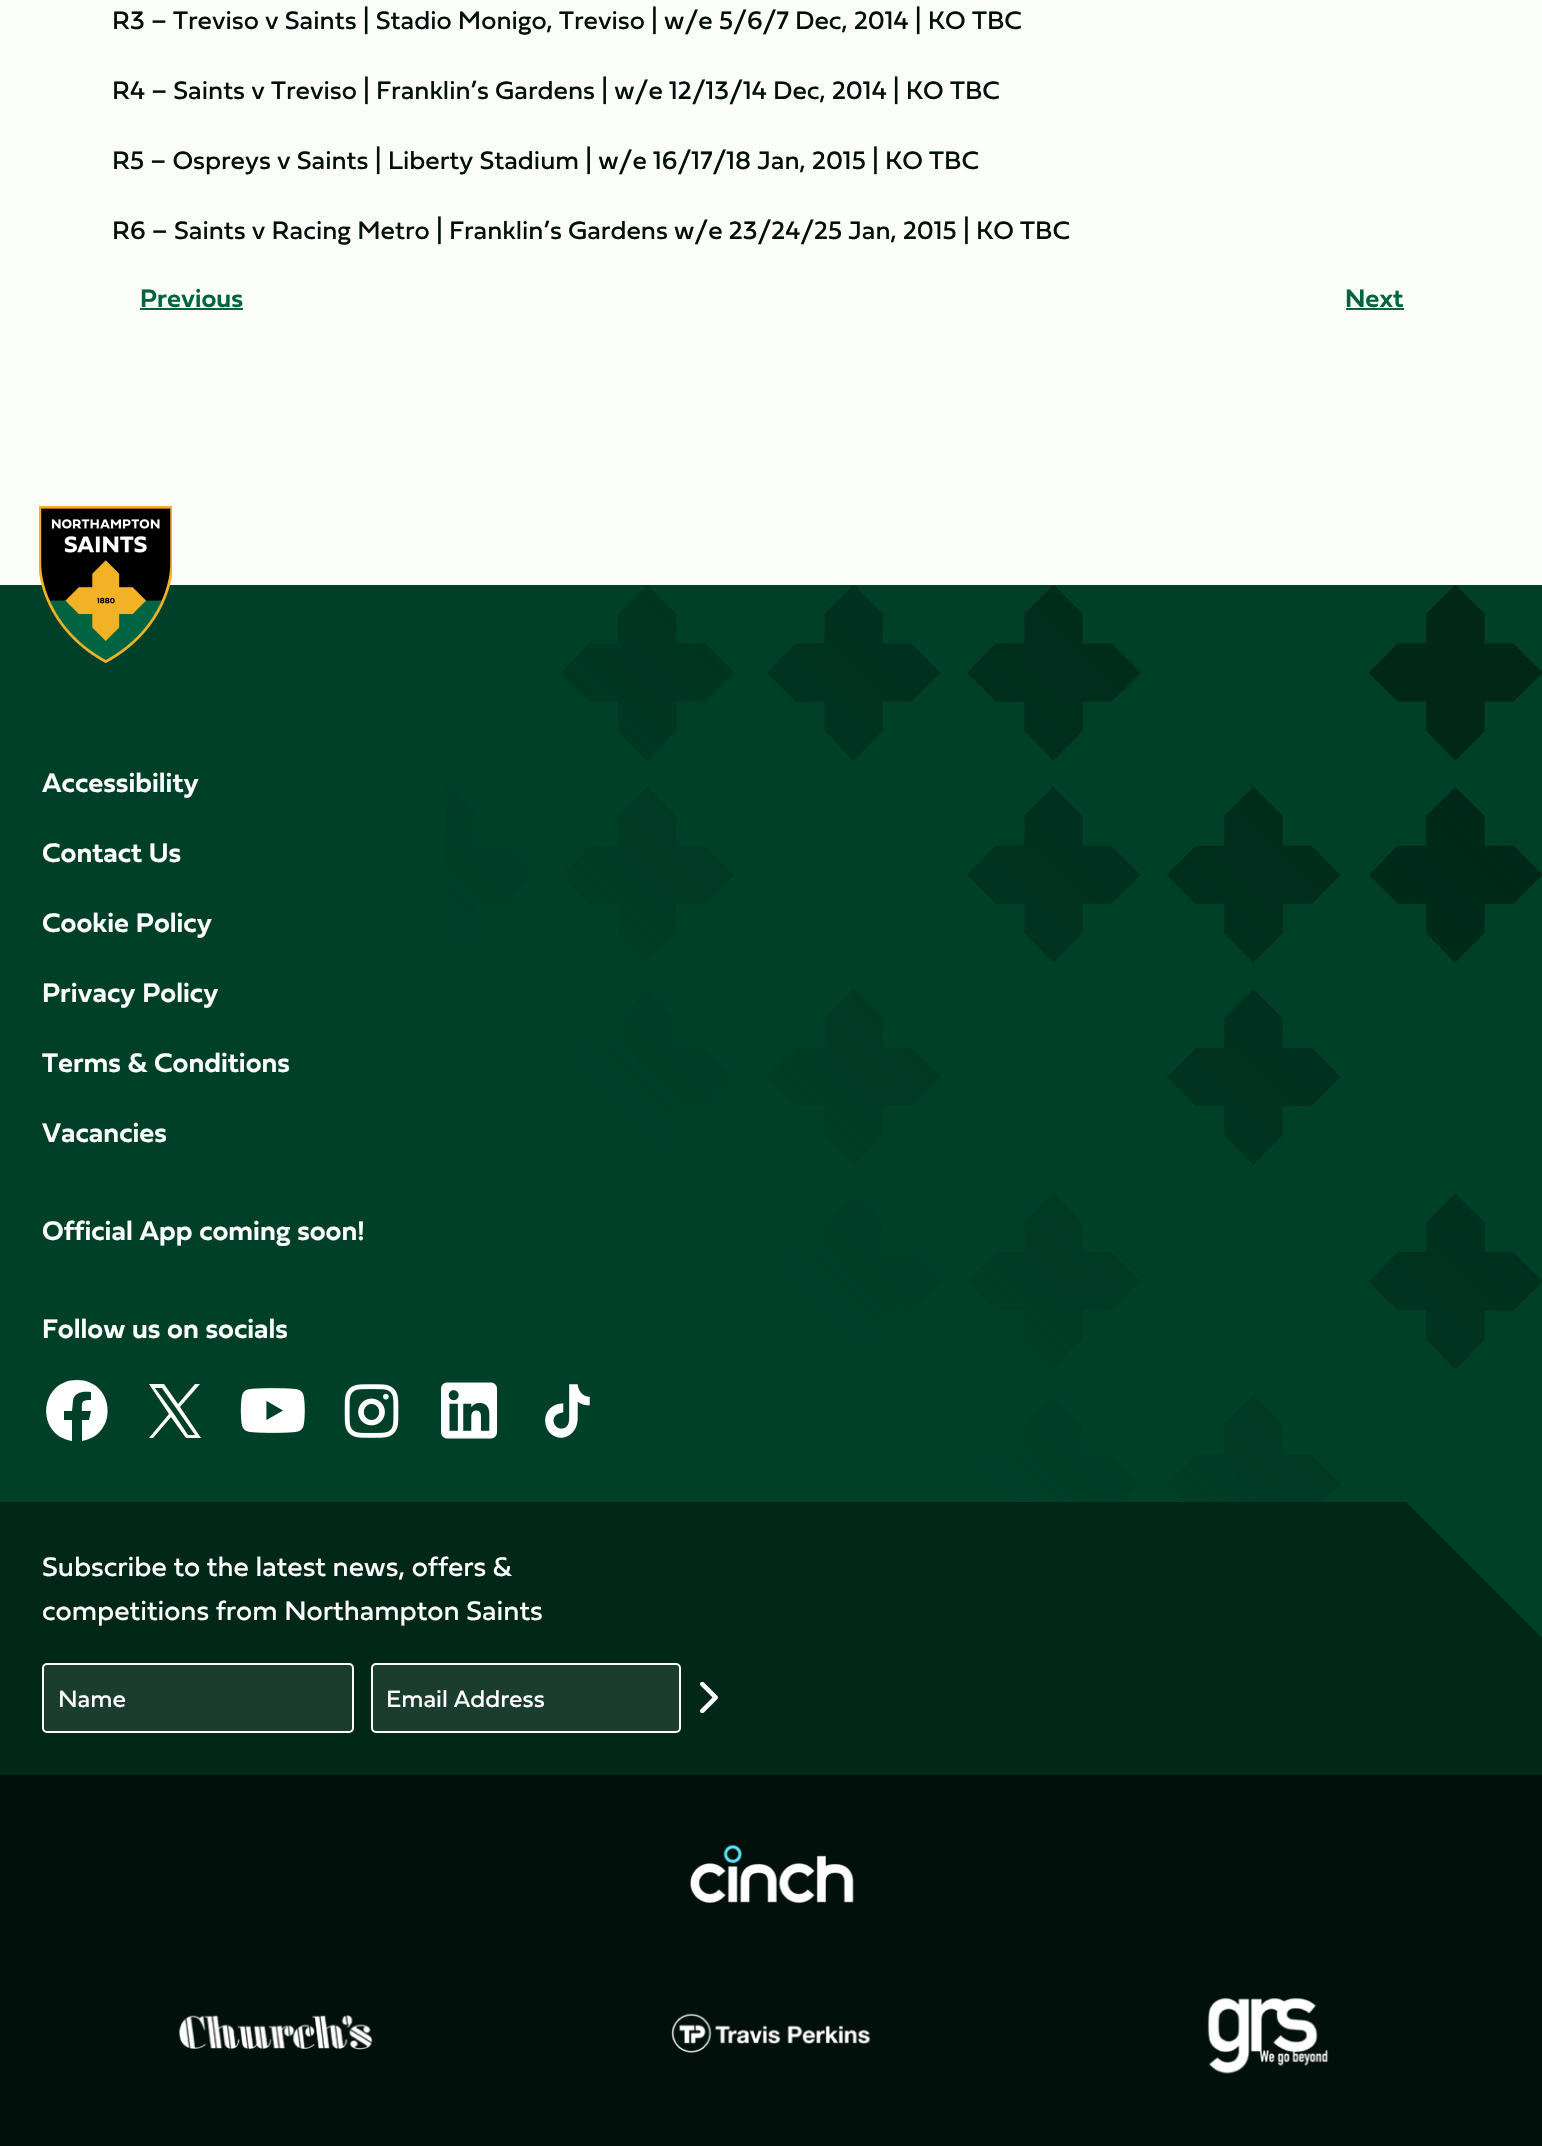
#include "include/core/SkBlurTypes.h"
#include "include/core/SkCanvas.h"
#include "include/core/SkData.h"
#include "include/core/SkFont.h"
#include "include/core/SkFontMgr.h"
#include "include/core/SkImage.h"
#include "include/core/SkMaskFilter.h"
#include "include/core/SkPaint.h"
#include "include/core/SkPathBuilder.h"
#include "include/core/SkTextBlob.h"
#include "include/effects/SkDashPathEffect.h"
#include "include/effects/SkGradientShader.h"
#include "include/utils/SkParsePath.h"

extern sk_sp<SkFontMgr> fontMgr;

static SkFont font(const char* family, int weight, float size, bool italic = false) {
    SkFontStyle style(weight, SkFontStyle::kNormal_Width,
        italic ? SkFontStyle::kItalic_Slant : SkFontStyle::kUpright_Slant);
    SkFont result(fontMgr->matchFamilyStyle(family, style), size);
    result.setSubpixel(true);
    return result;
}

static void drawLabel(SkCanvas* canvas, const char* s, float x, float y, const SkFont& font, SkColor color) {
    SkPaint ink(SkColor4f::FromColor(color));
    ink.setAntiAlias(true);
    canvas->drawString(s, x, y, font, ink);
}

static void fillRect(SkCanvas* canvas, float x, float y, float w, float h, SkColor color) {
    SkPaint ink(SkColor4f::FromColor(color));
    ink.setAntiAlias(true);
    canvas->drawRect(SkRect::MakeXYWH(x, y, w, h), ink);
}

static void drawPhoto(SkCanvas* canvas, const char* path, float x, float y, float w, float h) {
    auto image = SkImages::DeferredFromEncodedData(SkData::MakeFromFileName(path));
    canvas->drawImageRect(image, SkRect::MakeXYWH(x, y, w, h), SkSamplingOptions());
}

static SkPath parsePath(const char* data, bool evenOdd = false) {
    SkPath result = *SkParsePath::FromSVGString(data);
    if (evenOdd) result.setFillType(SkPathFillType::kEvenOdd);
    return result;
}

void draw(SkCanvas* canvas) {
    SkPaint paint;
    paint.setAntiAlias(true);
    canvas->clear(0xFFFBFEF9);
    SkFont font1 = font("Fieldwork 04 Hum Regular", 400, 26.25f);
    drawLabel(canvas, "R3 – Treviso v Saints | Stadio Monigo, Treviso | w/e 5/6/7 Dec, 2014 | KO TBC", 112, 29, font1, 0xFF01100B);
    drawLabel(canvas, "R4 – Saints v Treviso | Franklin’s Gardens | w/e 12/13/14 Dec, 2014 | KO TBC", 112, 99, font1, 0xFF01100B);
    drawLabel(canvas, "R5 – Ospreys v Saints | Liberty Stadium | w/e 16/17/18 Jan, 2015 | KO TBC", 112, 169, font1, 0xFF01100B);
    drawLabel(canvas, "R6 – Saints v Racing Metro | Franklin’s Gardens w/e 23/24/25 Jan, 2015 | KO TBC", 112, 239, font1, 0xFF01100B);
    SkFont font2 = font("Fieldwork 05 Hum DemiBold", 600, 26.25f);
    drawLabel(canvas, "Previous", 140, 307, font2, 0xFF006342);
    fillRect(canvas, 140, 308, 103, 2, 0xFF006342);
    drawLabel(canvas, "Next", 1345, 307, font2, 0xFF006342);
    fillRect(canvas, 1346, 308, 58, 2, 0xFF006342);
    fillRect(canvas, 0, 585, 1542, 917, 0xFF004029);
    drawPhoto(canvas, "assets/img1.png", 39, 506, 133, 157);
    fillRect(canvas, 0, 1775, 1542, 371, 0xFF01100B);
    drawPhoto(canvas, "assets/img2.png", 446, 585, 1096, 917);
    SkFont font3 = font("Fieldwork 05 Hum DemiBold", 600, 28);
    drawLabel(canvas, "Accessibility", 42, 792, font3, 0xFFFFFFFF);
    drawLabel(canvas, "Contact Us", 42, 862, font3, 0xFFFFFFFF);
    drawLabel(canvas, "Cookie Policy", 42, 932, font3, 0xFFFFFFFF);
    drawLabel(canvas, "Privacy Policy", 42, 1002, font3, 0xFFFFFFFF);
    drawLabel(canvas, "Terms & Conditions", 42, 1072, font3, 0xFFFFFFFF);
    drawLabel(canvas, "Vacancies", 42, 1142, font3, 0xFFFFFFFF);
    drawLabel(canvas, "Official App coming soon!", 42, 1240, font3, 0xFFFFFFFF);
    drawLabel(canvas, "Follow us on socials", 42, 1338, font3, 0xFFFFFFFF);
    paint.setColor(0xFFFFFFFF);
    canvas->drawPath(parsePath("M77 1380C39 1380 35 1435 72 1441V1420H64V1411H72L73 1401C74 1392 83 1391 91 1392V1400C81 1400 82 1402 82 1411H91L89 1420H82V1441C119 1435 115 1380 77 1380", true), paint);
    canvas->drawPath(parsePath("M180 1407L200 1384H195L178 1404L164 1384H149L169 1414L149 1438H153L171 1417L186 1438H201ZM174 1414L155 1388H162L195 1435H188Z"), paint);
    drawPhoto(canvas, "assets/img3.png", 240, 1388, 65, 45);
    drawPhoto(canvas, "assets/img4.png", 344, 1384, 55, 54);
    drawPhoto(canvas, "assets/img5.png", 441, 1382, 56, 57);
    drawPhoto(canvas, "assets/img6.png", 545, 1384, 45, 54);
    fillRect(canvas, 0, 1502, 1542, 273, 0xFF002718);
    SkFont font4 = font("Fieldwork 04 Hum Regular", 400, 28);
    drawLabel(canvas, "Subscribe to the latest news, offers &", 42, 1576, font4, 0xFFFFFFFF);
    drawLabel(canvas, "competitions from Northampton Saints", 42, 1620, font4, 0xFFFFFFFF);
    paint.setColor(0xFF1A3D2F);
    canvas->drawRoundRect(SkRect::MakeXYWH(43, 1664, 310, 68), 4, 4, paint);
    paint.setStroke(true);
    paint.setStrokeWidth(2);
    paint.setColor(0xFFFFFFFF);
    canvas->drawRoundRect(SkRect::MakeXYWH(43, 1664, 310, 68), 4, 4, paint);
    SkFont font5 = font("Fieldwork 04 Hum Regular", 400, 24.5f);
    drawLabel(canvas, "Name", 58, 1707, font5, 0xFFFFFFFF);
    paint.setStroke(false);
    paint.setColor(0xFF1A3D2F);
    canvas->drawRoundRect(SkRect::MakeXYWH(372, 1664, 308, 68), 4, 4, paint);
    paint.setStroke(true);
    paint.setColor(0xFFFFFFFF);
    canvas->drawRoundRect(SkRect::MakeXYWH(372, 1664, 308, 68), 4, 4, paint);
    drawLabel(canvas, "Email Address", 386, 1707, font5, 0xFFFFFFFF);
    drawPhoto(canvas, "assets/img7.png", 700, 1682, 18, 31);
    paint.setStroke(false);
    paint.setColor(0xFF004029);
    canvas->drawPath(parsePath("M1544 1500V1640L1404 1500Z"), paint);
    drawPhoto(canvas, "assets/img8.png", 690, 1845, 164, 58);
    drawPhoto(canvas, "assets/img9.png", 178, 2014, 195, 36);
    drawPhoto(canvas, "assets/img10.png", 671, 2013, 200, 40);
    drawPhoto(canvas, "assets/img11.png", 1207, 1998, 122, 76);
}
